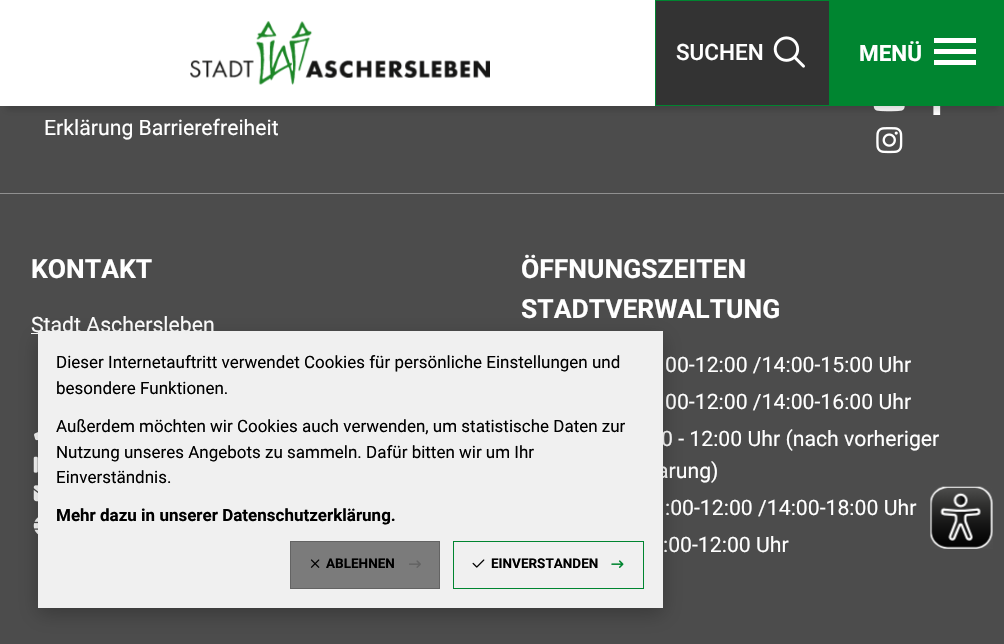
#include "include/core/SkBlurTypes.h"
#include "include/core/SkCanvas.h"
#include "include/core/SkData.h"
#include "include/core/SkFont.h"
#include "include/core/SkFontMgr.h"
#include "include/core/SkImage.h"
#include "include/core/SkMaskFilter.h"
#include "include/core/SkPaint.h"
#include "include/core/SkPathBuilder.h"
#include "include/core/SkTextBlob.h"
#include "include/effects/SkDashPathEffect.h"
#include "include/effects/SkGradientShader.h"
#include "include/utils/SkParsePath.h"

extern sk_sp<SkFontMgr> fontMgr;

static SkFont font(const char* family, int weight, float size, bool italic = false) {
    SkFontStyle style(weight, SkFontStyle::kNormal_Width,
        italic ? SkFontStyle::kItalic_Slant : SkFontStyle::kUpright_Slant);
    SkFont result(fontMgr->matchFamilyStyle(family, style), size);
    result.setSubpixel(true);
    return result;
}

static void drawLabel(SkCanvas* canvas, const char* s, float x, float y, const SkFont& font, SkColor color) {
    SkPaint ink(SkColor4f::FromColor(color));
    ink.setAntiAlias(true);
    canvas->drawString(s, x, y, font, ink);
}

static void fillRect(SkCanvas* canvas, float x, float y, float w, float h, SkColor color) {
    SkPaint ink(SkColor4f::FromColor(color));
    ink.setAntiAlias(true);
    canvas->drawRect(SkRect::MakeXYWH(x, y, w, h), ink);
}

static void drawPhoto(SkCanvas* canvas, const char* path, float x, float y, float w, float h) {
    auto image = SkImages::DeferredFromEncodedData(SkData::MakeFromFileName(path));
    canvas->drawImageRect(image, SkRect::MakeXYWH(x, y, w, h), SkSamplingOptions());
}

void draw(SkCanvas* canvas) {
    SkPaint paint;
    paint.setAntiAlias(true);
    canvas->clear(0xFF4C4C4C);
    drawPhoto(canvas, "assets/img3.png", 873, 106, 32, 6);
    drawPhoto(canvas, "assets/img4.png", 933, 106, 8, 9);
    paint.setColor(0x26000000);
    paint.setMaskFilter(SkMaskFilter::MakeBlur(kNormal_SkBlurStyle, 3));
    canvas->drawRect(SkRect::MakeXYWH(6, 16, 993, 94), paint);
    paint.setMaskFilter(nullptr);
    fillRect(canvas, 0, 0, 655, 106, 0xFFFFFFFF);
    drawPhoto(canvas, "assets/img1.png", 190, 21, 300, 64);
    paint.setColor(0xFF333333);
    canvas->drawRect(SkRect::MakeXYWH(655.5f, 0.5f, 174, 105), paint);
    paint.setStroke(true);
    paint.setStrokeWidth(1);
    paint.setColor(0xFF008530);
    canvas->drawRect(SkRect::MakeXYWH(655.5f, 0.5f, 174, 105), paint);
    SkFont font1 = font("Roboto", 500, 22.5f);
    drawLabel(canvas, "SUCHEN", 676, 60, font1, 0xFFFFFFFF);
    drawPhoto(canvas, "assets/img2.png", 773, 36, 32, 32);
    fillRect(canvas, 830, 0, 174, 106, 0xFF008530);
    SkFont font2 = font("Roboto", 700, 22.5f);
    drawLabel(canvas, "MENÜ", 859, 61, font2, 0xFFFFFFFF);
    fillRect(canvas, 934, 38, 42, 5, 0xFFFFFFFF);
    fillRect(canvas, 934, 49, 42, 5, 0xFFFFFFFF);
    fillRect(canvas, 934, 60, 42, 5, 0xFFFFFFFF);
    fillRect(canvas, 0, 193, 1004, 1, 0xFF909090);
    SkFont font3 = font("Roboto", 400, 21.25f);
    drawLabel(canvas, "Erklärung Barrierefreiheit", 44, 135, font3, 0xFFFFFFFF);
    drawPhoto(canvas, "assets/img5.png", 876, 127, 27, 27);
    SkFont font4 = font("Roboto", 700, 26.5f);
    drawLabel(canvas, "KONTAKT", 31, 278, font4, 0xFFFFFFFF);
    drawLabel(canvas, "Stadt Aschersleben", 31, 332, font3, 0xFFFFFFFF);
    fillRect(canvas, 31, 333, 7, 1, 0xFFFFFFFF);
    drawPhoto(canvas, "assets/img6.png", 34, 432, 4, 9);
    drawPhoto(canvas, "assets/img7.png", 33, 456, 5, 17);
    drawPhoto(canvas, "assets/img8.png", 33, 485, 5, 17);
    drawPhoto(canvas, "assets/img9.png", 33, 517, 5, 18);
    drawLabel(canvas, "ÖFFNUNGSZEITEN", 521, 278, font4, 0xFFFFFFFF);
    drawLabel(canvas, "STADTVERWALTUNG", 521, 318, font4, 0xFFFFFFFF);
    drawLabel(canvas, "00-12:00 /14:00-15:00 Uhr", 665, 372, font3, 0xFFFFFFFF);
    drawLabel(canvas, "00-12:00 /14:00-16:00 Uhr", 665, 409, font3, 0xFFFFFFFF);
    drawLabel(canvas, "0 - 12:00 Uhr (nach vorheriger", 661, 446, font3, 0xFFFFFFFF);
    drawLabel(canvas, "arung)", 657, 478, font3, 0xFFFFFFFF);
    drawLabel(canvas, ":00-12:00 /14:00-18:00 Uhr", 665, 515, font3, 0xFFFFFFFF);
    drawLabel(canvas, ":00-12:00 Uhr", 663, 552, font3, 0xFFFFFFFF);
    paint.setStroke(false);
    paint.setColor(0x40000000);
    paint.setMaskFilter(SkMaskFilter::MakeBlur(kNormal_SkBlurStyle, 9.5f));
    canvas->drawRect(SkRect::MakeXYWH(38, 338, 625, 276), paint);
    paint.setMaskFilter(nullptr);
    fillRect(canvas, 38, 331, 625, 277, 0xFFF0F0F0);
    SkFont font5 = font("Roboto", 400, 17);
    drawLabel(canvas, "Dieser Internetauftritt verwendet Cookies für persönliche Einstellungen und", 56, 368, font5, 0xFF000000);
    drawLabel(canvas, "besondere Funktionen.", 56, 394, font5, 0xFF000000);
    drawLabel(canvas, "Außerdem möchten wir Cookies auch verwenden, um statistische Daten zur", 56, 432, font5, 0xFF000000);
    drawLabel(canvas, "Nutzung unseres Angebots zu sammeln. Dafür bitten wir um Ihr", 56, 458, font5, 0xFF000000);
    drawLabel(canvas, "Einverständnis.", 56, 483, font5, 0xFF000000);
    SkFont font6 = font("Roboto", 700, 17);
    drawLabel(canvas, "Mehr dazu in unserer Datenschutzerklärung.", 56, 521, font6, 0xFF000000);
    paint.setColor(0xFF7B7B7B);
    canvas->drawRect(SkRect::MakeXYWH(290.5f, 541.5f, 149, 47), paint);
    paint.setStroke(true);
    paint.setColor(0xFF636363);
    canvas->drawRect(SkRect::MakeXYWH(290.5f, 541.5f, 149, 47), paint);
    drawPhoto(canvas, "assets/img10.png", 310, 559, 10, 9);
    SkFont font7 = font("Roboto", 700, 13.5f);
    drawLabel(canvas, "ABLEHNEN", 326, 568, font7, 0xFF000000);
    drawPhoto(canvas, "assets/img11.png", 409, 560, 12, 8);
    paint.setColor(0xFF008530);
    canvas->drawRect(SkRect::MakeXYWH(453.5f, 541.5f, 190, 47), paint);
    drawPhoto(canvas, "assets/img12.png", 472, 559, 13, 9);
    drawLabel(canvas, "EINVERSTANDEN", 491, 568, font7, 0xFF000000);
    drawPhoto(canvas, "assets/img13.png", 611, 560, 13, 8);
    drawPhoto(canvas, "assets/img14.png", 930, 486, 63, 63);
}
